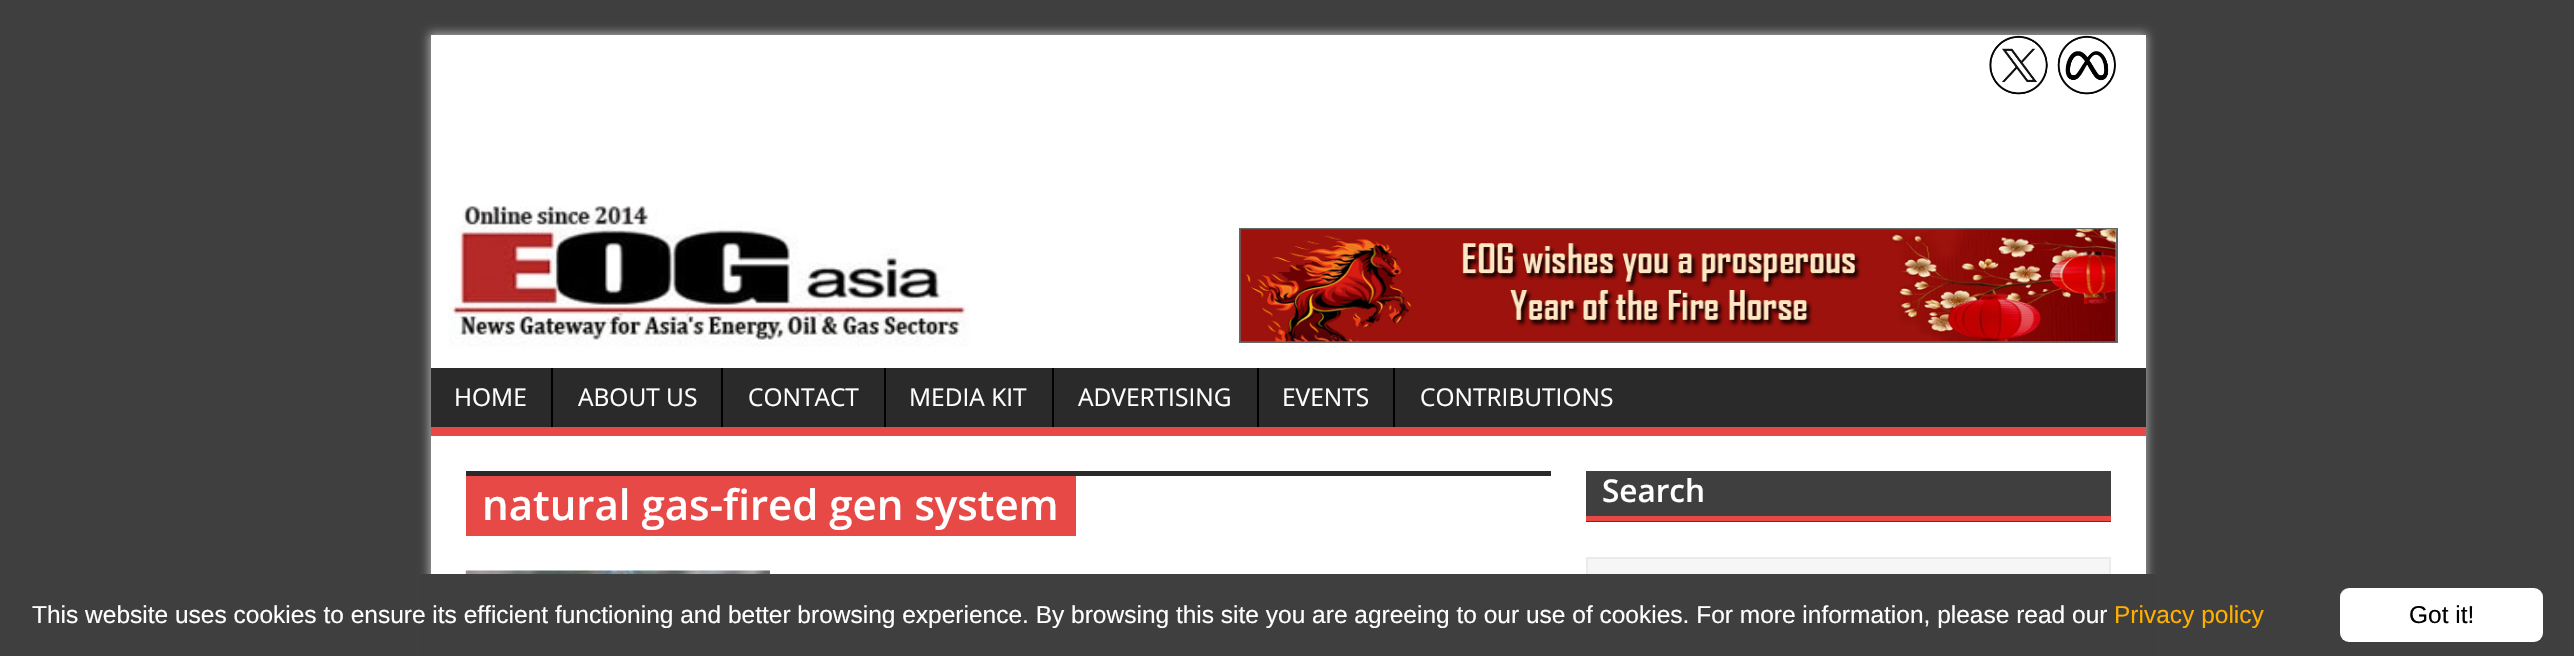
#include "include/core/SkBlurTypes.h"
#include "include/core/SkCanvas.h"
#include "include/core/SkData.h"
#include "include/core/SkFont.h"
#include "include/core/SkFontMgr.h"
#include "include/core/SkImage.h"
#include "include/core/SkMaskFilter.h"
#include "include/core/SkPaint.h"
#include "include/core/SkPathBuilder.h"
#include "include/core/SkTextBlob.h"
#include "include/effects/SkDashPathEffect.h"
#include "include/effects/SkGradientShader.h"
#include "include/utils/SkParsePath.h"

extern sk_sp<SkFontMgr> fontMgr;

static SkFont font(const char* family, int weight, float size, bool italic = false) {
    SkFontStyle style(weight, SkFontStyle::kNormal_Width,
        italic ? SkFontStyle::kItalic_Slant : SkFontStyle::kUpright_Slant);
    SkFont result(fontMgr->matchFamilyStyle(family, style), size);
    result.setSubpixel(true);
    return result;
}

static void drawLabel(SkCanvas* canvas, const char* s, float x, float y, const SkFont& font, SkColor color) {
    SkPaint ink(SkColor4f::FromColor(color));
    ink.setAntiAlias(true);
    canvas->drawString(s, x, y, font, ink);
}

static void fillRect(SkCanvas* canvas, float x, float y, float w, float h, SkColor color) {
    SkPaint ink(SkColor4f::FromColor(color));
    ink.setAntiAlias(true);
    canvas->drawRect(SkRect::MakeXYWH(x, y, w, h), ink);
}

static void fillRRect(SkCanvas* canvas, float x, float y, float w, float h, float radius, SkColor color) {
    SkPaint ink(SkColor4f::FromColor(color));
    ink.setAntiAlias(true);
    canvas->drawRoundRect(SkRect::MakeXYWH(x, y, w, h), radius, radius, ink);
}

static void drawPhoto(SkCanvas* canvas, const char* path, float x, float y, float w, float h) {
    auto image = SkImages::DeferredFromEncodedData(SkData::MakeFromFileName(path));
    canvas->drawImageRect(image, SkRect::MakeXYWH(x, y, w, h), SkSamplingOptions());
}

void draw(SkCanvas* canvas) {
    SkPaint paint;
    paint.setAntiAlias(true);
    canvas->clear(0xFF3F3F3F);
    paint.setColor(0xFFA8A8A8);
    paint.setMaskFilter(SkMaskFilter::MakeBlur(kNormal_SkBlurStyle, 4.5f));
    canvas->drawRect(SkRect::MakeXYWH(429, 33, 1718, 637), paint);
    paint.setMaskFilter(nullptr);
    fillRect(canvas, 431, 35, 1715, 333, 0xFFFFFFFF);
    drawPhoto(canvas, "assets/img1.png", 1989, 35, 59, 60);
    drawPhoto(canvas, "assets/img2.png", 2057, 35, 59, 60);
    drawPhoto(canvas, "assets/img3.png", 448, 206, 522, 141);
    paint.setStroke(true);
    paint.setStrokeWidth(2);
    paint.setColor(0xFF666666);
    canvas->drawRect(SkRect::MakeXYWH(1240, 229, 877, 113), paint);
    drawPhoto(canvas, "assets/img4.png", 1240, 229, 876, 113);
    fillRect(canvas, 431, 368, 1715, 59, 0xFF2A2A2A);
    fillRect(canvas, 431, 427, 1715, 9, 0xFFE64946);
    SkFont font1 = font("Open Sans", 400, 24.5f);
    drawLabel(canvas, "HOME", 454, 406, font1, 0xFFFFFFFF);
    fillRect(canvas, 551, 368, 2, 59, 0xFF000000);
    drawLabel(canvas, "ABOUT US", 578, 406, font1, 0xFFFFFFFF);
    fillRect(canvas, 721, 368, 2, 59, 0xFF000000);
    drawLabel(canvas, "CONTACT", 748, 406, font1, 0xFFFFFFFF);
    fillRect(canvas, 884, 368, 2, 59, 0xFF000000);
    drawLabel(canvas, "MEDIA KIT", 909, 406, font1, 0xFFFFFFFF);
    fillRect(canvas, 1052, 368, 2, 59, 0xFF000000);
    drawLabel(canvas, "ADVERTISING", 1078, 406, font1, 0xFFFFFFFF);
    fillRect(canvas, 1257, 368, 2, 59, 0xFF000000);
    drawLabel(canvas, "EVENTS", 1282, 406, font1, 0xFFFFFFFF);
    fillRect(canvas, 1393, 368, 2, 59, 0xFF000000);
    drawLabel(canvas, "CONTRIBUTIONS", 1420, 406, font1, 0xFFFFFFFF);
    fillRect(canvas, 431, 436, 1715, 138, 0xFFFFFFFF);
    fillRect(canvas, 466, 471, 1085, 5, 0xFF2A2A2A);
    fillRect(canvas, 466, 476, 610, 60, 0xFFE64946);
    SkFont font2 = font("Open Sans", 600, 42);
    drawLabel(canvas, "natural gas-fired gen system", 482, 520, font2, 0xFFFFFFFF);
    drawPhoto(canvas, "assets/img5.png", 465, 570, 305, 4);
    fillRect(canvas, 1586, 471, 525, 51, 0xFF3F3F3F);
    fillRect(canvas, 1586, 516, 525, 5, 0xFFE64946);
    SkFont font3 = font("Open Sans", 600, 31.5f);
    drawLabel(canvas, "Search", 1602, 502, font3, 0xFFFFFFFF);
    fillRect(canvas, 1588, 559, 521, 15, 0xFFF6F6F6);
    paint.setColor(0xFFEBEBEB);
    canvas->drawRect(SkRect::MakeXYWH(1587, 558, 523, 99), paint);
    fillRect(canvas, 420, 574, 1736, 82, 0xFF3F3F3F);
    SkFont font4 = font("Liberation Sans", 400, 24.5f);
    drawLabel(canvas, "This website uses cookies to ensure its efficient functioning and better browsing experience. By browsing this site you are agreeing to our use of cookies. For more information, please read our", 32, 623, font4, 0xFFFFFFFF);
    drawLabel(canvas, "Privacy policy", 2114, 623, font4, 0xFFFFAF00);
    fillRRect(canvas, 2340, 588, 203, 54, 9, 0xFFFFFFFF);
    drawLabel(canvas, "Got it!", 2409, 623, font4, 0xFF000000);
}
